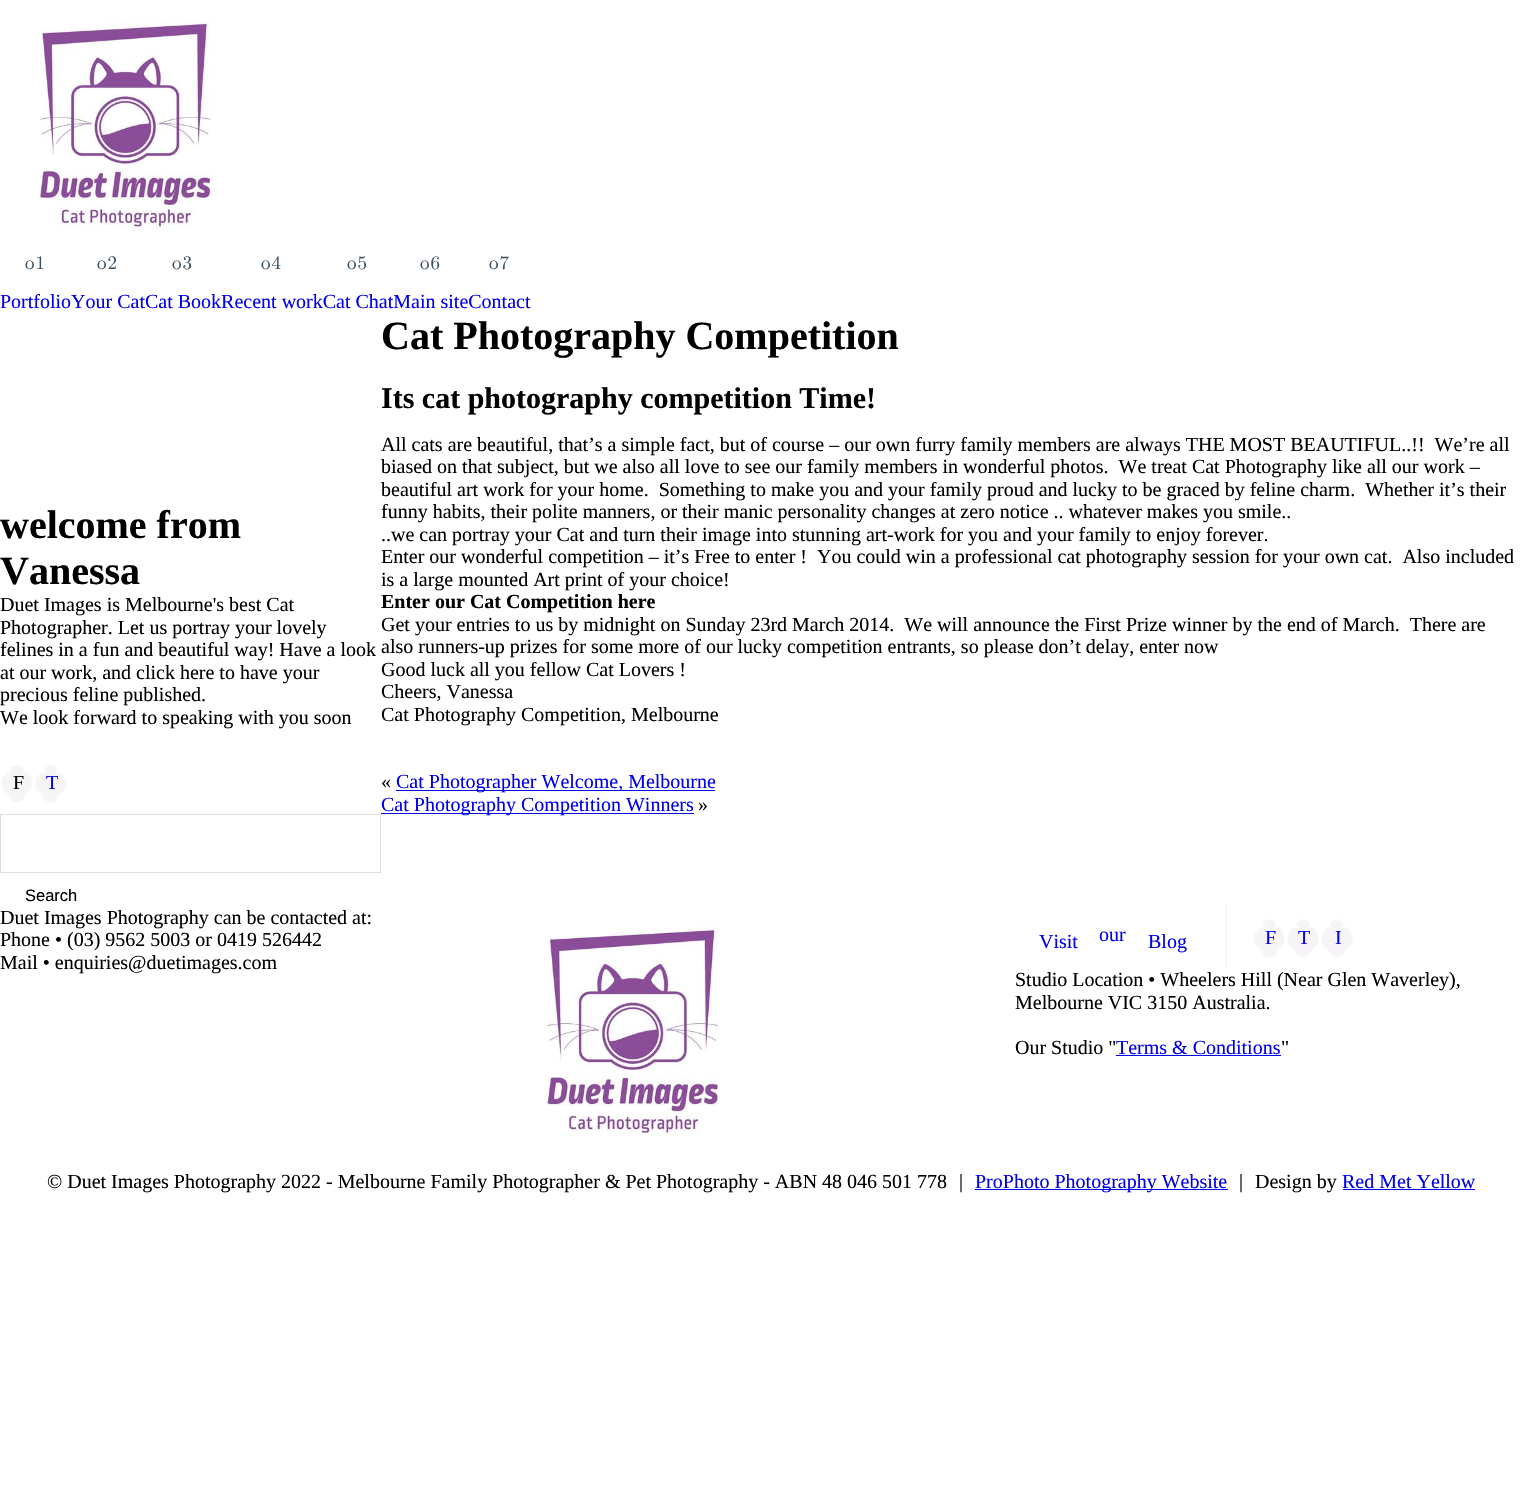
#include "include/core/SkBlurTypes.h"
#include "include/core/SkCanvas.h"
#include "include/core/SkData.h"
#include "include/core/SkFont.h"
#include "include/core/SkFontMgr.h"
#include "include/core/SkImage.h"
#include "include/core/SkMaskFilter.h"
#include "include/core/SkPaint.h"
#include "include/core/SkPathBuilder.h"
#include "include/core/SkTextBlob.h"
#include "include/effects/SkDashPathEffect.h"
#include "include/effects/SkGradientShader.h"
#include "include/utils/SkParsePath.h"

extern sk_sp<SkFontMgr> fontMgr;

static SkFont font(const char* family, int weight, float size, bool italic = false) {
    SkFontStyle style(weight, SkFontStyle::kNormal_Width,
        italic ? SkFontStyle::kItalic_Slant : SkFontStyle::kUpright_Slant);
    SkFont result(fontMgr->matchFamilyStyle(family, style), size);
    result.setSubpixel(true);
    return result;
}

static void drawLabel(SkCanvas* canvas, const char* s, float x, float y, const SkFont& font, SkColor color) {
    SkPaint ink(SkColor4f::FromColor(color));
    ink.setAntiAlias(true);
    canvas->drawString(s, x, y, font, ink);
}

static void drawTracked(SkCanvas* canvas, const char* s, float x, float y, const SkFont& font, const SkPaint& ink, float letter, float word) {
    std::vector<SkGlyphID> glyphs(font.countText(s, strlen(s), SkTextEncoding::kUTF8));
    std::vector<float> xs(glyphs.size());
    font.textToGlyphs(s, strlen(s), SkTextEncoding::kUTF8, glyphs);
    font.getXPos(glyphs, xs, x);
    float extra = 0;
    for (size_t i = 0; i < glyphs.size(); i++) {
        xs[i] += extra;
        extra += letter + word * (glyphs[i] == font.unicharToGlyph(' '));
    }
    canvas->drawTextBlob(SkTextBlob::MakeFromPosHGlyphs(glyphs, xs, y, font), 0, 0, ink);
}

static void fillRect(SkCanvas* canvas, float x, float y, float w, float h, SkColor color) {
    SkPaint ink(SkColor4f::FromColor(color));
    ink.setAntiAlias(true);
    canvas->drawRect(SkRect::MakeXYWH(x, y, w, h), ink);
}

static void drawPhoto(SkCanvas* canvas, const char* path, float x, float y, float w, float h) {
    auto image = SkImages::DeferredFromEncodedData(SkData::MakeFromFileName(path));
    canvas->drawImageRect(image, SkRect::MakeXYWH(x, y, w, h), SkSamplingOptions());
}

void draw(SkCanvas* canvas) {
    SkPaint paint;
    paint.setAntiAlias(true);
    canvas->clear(0xFFFFFFFF);
    drawPhoto(canvas, "assets/img1.png", 39, 20, 172, 210);
    SkFont font1 = font("Latin Modern Roman", 400, 19);
    paint.setColor(0xFF3B5265);
    drawTracked(canvas, "o1", 25, 269, font1, paint, 1, 0);
    SkFont font2 = font("Liberation Serif", 400, 20);
    drawLabel(canvas, "PortfolioYour CatCat BookRecent workCat ChatMain siteContact", 0, 308, font2, 0xFF0000EE);
    drawTracked(canvas, "o2", 97, 269, font1, paint, 1, 0);
    drawTracked(canvas, "o3", 172, 269, font1, paint, 1, 0);
    drawTracked(canvas, "o4", 261, 269, font1, paint, 1, 0);
    drawTracked(canvas, "o5", 347, 269, font1, paint, 1, 0);
    drawTracked(canvas, "o6", 420, 269, font1, paint, 1, 0);
    drawTracked(canvas, "o7", 489, 269, font1, paint, 1, 0);
    SkFont font3 = font("Liberation Serif", 700, 40);
    drawLabel(canvas, "welcome from", 0, 538, font3, 0xFF000000);
    drawLabel(canvas, "Vanessa", 0, 584, font3, 0xFF000000);
    drawLabel(canvas, "Duet Images is Melbourne's best Cat", 0, 611, font2, 0xFF000000);
    drawLabel(canvas, "Photographer. Let us portray your lovely", 0, 634, font2, 0xFF000000);
    drawLabel(canvas, "felines in a fun and beautiful way! Have a look", 0, 656, font2, 0xFF000000);
    drawLabel(canvas, "at our work, and click here to have your", 0, 679, font2, 0xFF000000);
    drawLabel(canvas, "precious feline published.", 0, 701, font2, 0xFF000000);
    drawLabel(canvas, "We look forward to speaking with you soon", 0, 724, font2, 0xFF000000);
    drawPhoto(canvas, "assets/img2.png", 1, 764, 32, 39);
    drawLabel(canvas, "F", 13, 789, font2, 0xFF000000);
    drawPhoto(canvas, "assets/img3.png", 35, 764, 32, 39);
    drawLabel(canvas, "T", 46, 789, font2, 0xFF0000EE);
    paint.setStroke(true);
    paint.setStrokeWidth(1);
    paint.setColor(0xFFE2DDDA);
    canvas->drawRect(SkRect::MakeXYWH(0.5f, 814.5f, 380, 58), paint);
    SkFont font4 = font("Liberation Sans", 400, 16.5f);
    drawLabel(canvas, "Search", 25, 901, font4, 0xFF000000);
    drawLabel(canvas, "Cat Photography Competition", 381, 349, font3, 0xFF000000);
    SkFont font5 = font("Liberation Serif", 700, 30);
    drawLabel(canvas, "Its cat photography competition Time!", 381, 408, font5, 0xFF000000);
    drawLabel(canvas, "All cats are beautiful, that’s a simple fact, but of course – our own furry family members are always THE MOST BEAUTIFUL..!!  We’re all", 381, 451, font2, 0xFF000000);
    drawLabel(canvas, "biased on that subject, but we also all love to see our family members in wonderful photos.  We treat Cat Photography like all our work –", 381, 473, font2, 0xFF000000);
    drawLabel(canvas, "beautiful art work for your home.  Something to make you and your family proud and lucky to be graced by feline charm.  Whether it’s their", 381, 496, font2, 0xFF000000);
    drawLabel(canvas, "funny habits, their polite manners, or their manic personality changes at zero notice .. whatever makes you smile..", 381, 518, font2, 0xFF000000);
    drawLabel(canvas, "..we can portray your Cat and turn their image into stunning art-work for you and your family to enjoy forever.", 381, 541, font2, 0xFF000000);
    drawLabel(canvas, "Enter our wonderful competition – it’s Free to enter !  You could win a professional cat photography session for your own cat.  Also included", 381, 563, font2, 0xFF000000);
    drawLabel(canvas, "is a large mounted Art print of your choice!", 381, 586, font2, 0xFF000000);
    SkFont font6 = font("Liberation Serif", 700, 20);
    drawLabel(canvas, "Enter our Cat Competition here", 381, 608, font6, 0xFF000000);
    drawLabel(canvas, "Get your entries to us by midnight on Sunday 23rd March 2014.  We will announce the First Prize winner by the end of March.  There are", 381, 631, font2, 0xFF000000);
    drawLabel(canvas, "also runners-up prizes for some more of our lucky competition entrants, so please don’t delay, enter now", 381, 653, font2, 0xFF000000);
    drawLabel(canvas, "Good luck all you fellow Cat Lovers !", 381, 676, font2, 0xFF000000);
    drawLabel(canvas, "Cheers, Vanessa", 381, 698, font2, 0xFF000000);
    drawLabel(canvas, "Cat Photography Competition, Melbourne", 381, 721, font2, 0xFF000000);
    drawLabel(canvas, "«", 381, 788, font2, 0xFF000000);
    fillRect(canvas, 396, 790, 319, 1, 0xFF0000EE);
    drawLabel(canvas, "Cat Photographer Welcome, Melbourne", 396, 788, font2, 0xFF0000EE);
    fillRect(canvas, 381, 813, 313, 1, 0xFF0000EE);
    drawLabel(canvas, "Cat Photography Competition Winners", 381, 811, font2, 0xFF0000EE);
    drawLabel(canvas, "»", 698, 811, font2, 0xFF000000);
    drawLabel(canvas, "Duet Images Photography can be contacted at:", 0, 924, font2, 0xFF000000);
    drawLabel(canvas, "Phone • (03) 9562 5003 or 0419 526442", 0, 946, font2, 0xFF000000);
    drawLabel(canvas, "Mail • enquiries@duetimages.com", 0, 969, font2, 0xFF000000);
    drawPhoto(canvas, "assets/img4.png", 547, 926, 175, 211);
    drawLabel(canvas, "Visit", 1039, 948, font2, 0xFF0000EE);
    drawLabel(canvas, "our", 1099, 941, font2, 0xFF0000EE);
    drawLabel(canvas, "Blog", 1148, 948, font2, 0xFF0000EE);
    fillRect(canvas, 1226, 906, 1, 63, 0xFFF2F0EE);
    drawPhoto(canvas, "assets/img5.png", 1253, 919, 32, 39);
    drawLabel(canvas, "F", 1265, 944, font2, 0xFF0000EE);
    drawPhoto(canvas, "assets/img6.png", 1287, 919, 32, 39);
    drawLabel(canvas, "T", 1298, 944, font2, 0xFF0000EE);
    drawPhoto(canvas, "assets/img7.png", 1321, 919, 32, 39);
    drawLabel(canvas, "I", 1335, 944, font2, 0xFF0000EE);
    drawLabel(canvas, "Studio Location • Wheelers Hill (Near Glen Waverley),", 1015, 986, font2, 0xFF000000);
    drawLabel(canvas, "Melbourne VIC 3150 Australia.", 1015, 1009, font2, 0xFF000000);
    drawLabel(canvas, "Our Studio \"", 1015, 1054, font2, 0xFF000000);
    drawLabel(canvas, "Terms & Conditions", 1116, 1054, font2, 0xFF0000EE);
    fillRect(canvas, 1116, 1055, 165, 1, 0xFF0000EE);
    drawLabel(canvas, "\"", 1281, 1054, font2, 0xFF000000);
    drawLabel(canvas, "© Duet Images Photography 2022 - Melbourne Family Photographer & Pet Photography - ABN 48 046 501 778", 47, 1188, font2, 0xFF000000);
    drawLabel(canvas, "|", 959, 1188, font2, 0xFF000000);
    fillRect(canvas, 975, 1189, 253, 1, 0xFF0000EE);
    drawLabel(canvas, "ProPhoto Photography Website", 975, 1188, font2, 0xFF0000EE);
    drawLabel(canvas, "|", 1239, 1188, font2, 0xFF000000);
    drawLabel(canvas, "Design by", 1255, 1188, font2, 0xFF000000);
    drawLabel(canvas, "Red Met Yellow", 1342, 1188, font2, 0xFF0000EE);
    fillRect(canvas, 1343, 1189, 132, 1, 0xFF0000EE);
}
